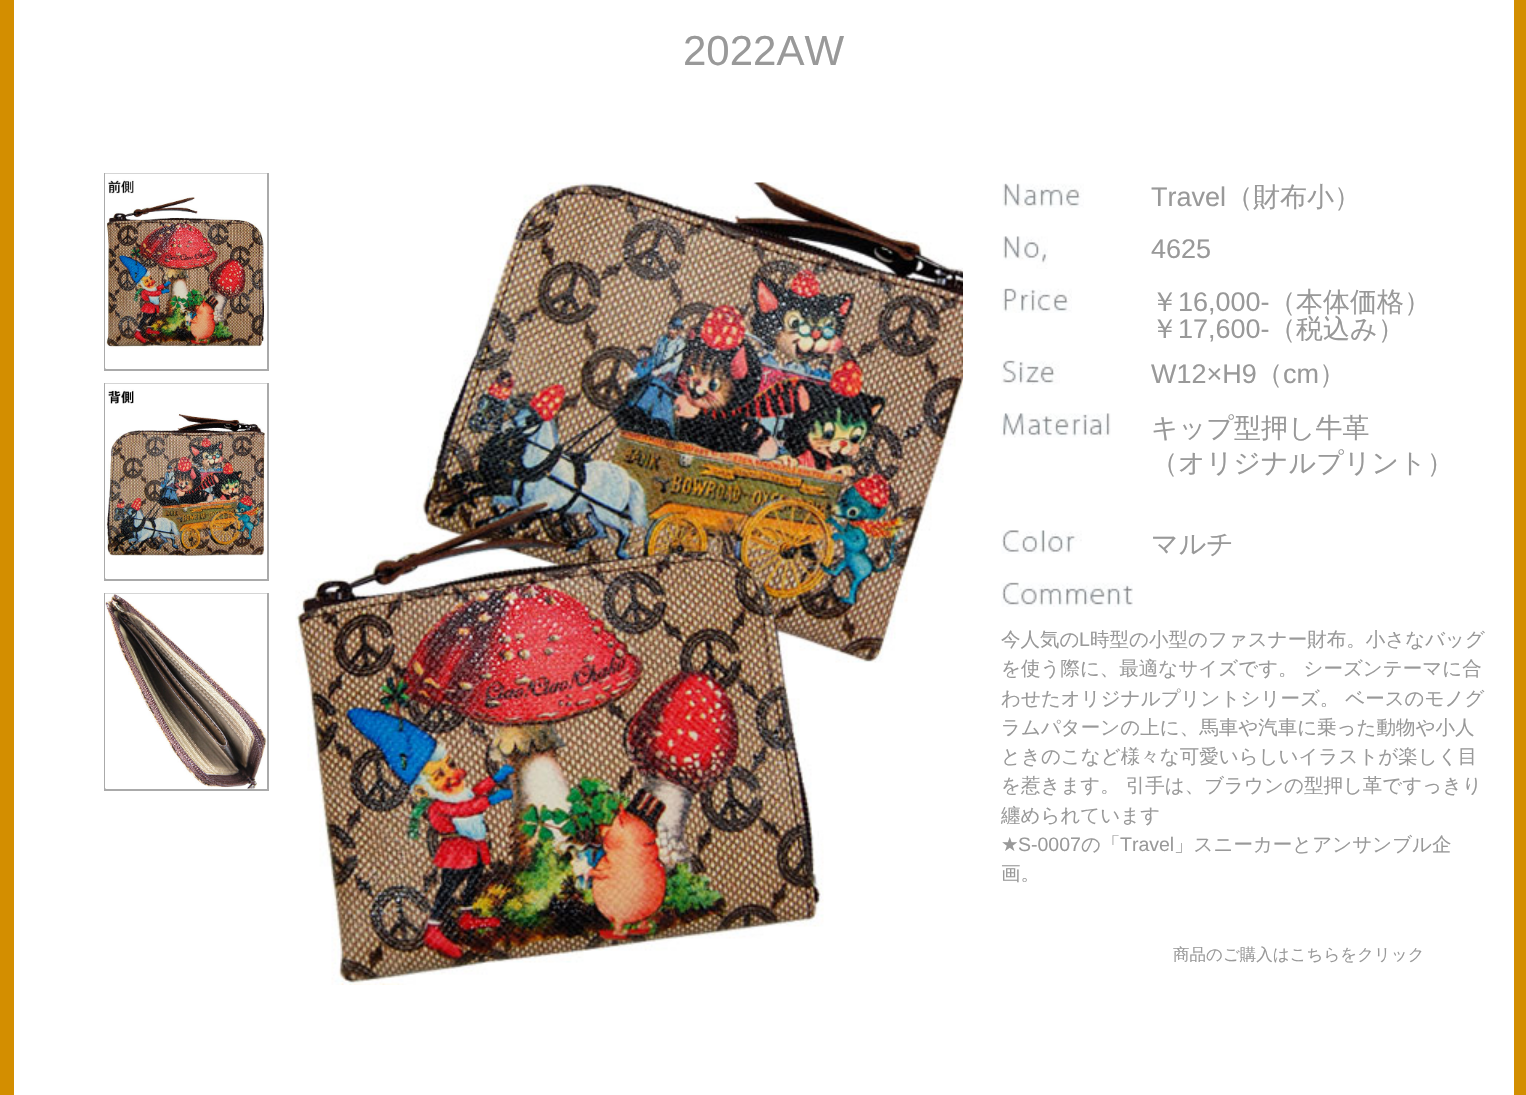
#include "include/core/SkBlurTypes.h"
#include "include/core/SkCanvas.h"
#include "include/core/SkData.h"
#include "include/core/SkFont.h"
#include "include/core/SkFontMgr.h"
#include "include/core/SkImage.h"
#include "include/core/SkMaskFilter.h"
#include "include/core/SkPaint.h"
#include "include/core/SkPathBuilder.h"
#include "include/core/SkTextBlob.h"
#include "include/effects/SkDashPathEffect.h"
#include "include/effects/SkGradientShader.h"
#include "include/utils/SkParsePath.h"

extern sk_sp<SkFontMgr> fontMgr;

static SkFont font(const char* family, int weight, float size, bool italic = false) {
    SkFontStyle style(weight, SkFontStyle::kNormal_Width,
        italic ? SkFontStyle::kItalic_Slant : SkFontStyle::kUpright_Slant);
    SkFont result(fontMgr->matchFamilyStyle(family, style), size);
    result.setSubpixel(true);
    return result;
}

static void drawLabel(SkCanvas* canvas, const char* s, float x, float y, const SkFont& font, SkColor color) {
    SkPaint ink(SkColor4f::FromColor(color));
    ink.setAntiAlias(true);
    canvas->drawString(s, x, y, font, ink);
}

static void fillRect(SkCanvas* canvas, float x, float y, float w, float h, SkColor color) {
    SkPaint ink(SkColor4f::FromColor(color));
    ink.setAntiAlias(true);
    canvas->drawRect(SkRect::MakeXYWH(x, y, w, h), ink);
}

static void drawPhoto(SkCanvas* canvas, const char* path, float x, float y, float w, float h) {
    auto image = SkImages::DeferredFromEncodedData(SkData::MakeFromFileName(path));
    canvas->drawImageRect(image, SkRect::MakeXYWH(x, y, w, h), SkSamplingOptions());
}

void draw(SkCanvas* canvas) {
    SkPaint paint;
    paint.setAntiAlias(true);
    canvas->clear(0xFFD38E00);
    fillRect(canvas, 14, 0, 1500, 1095, 0xFFFFFFFF);
    SkFont font1 = font("Liberation Sans", 400, 42);
    drawLabel(canvas, "2022AW", 683, 65, font1, 0xFF999999);
    paint.setStroke(true);
    paint.setStrokeWidth(2);
    paint.setColor(0xFFAAAAAA);
    canvas->drawRect(SkRect::MakeXYWH(105, 174, 163, 196), paint);
    drawPhoto(canvas, "assets/img1.png", 105, 173, 162, 196);
    canvas->drawRect(SkRect::MakeXYWH(105, 384, 163, 196), paint);
    drawPhoto(canvas, "assets/img2.png", 105, 383, 162, 196);
    canvas->drawRect(SkRect::MakeXYWH(105, 594, 163, 196), paint);
    drawPhoto(canvas, "assets/img3.png", 105, 593, 162, 196);
    drawPhoto(canvas, "assets/img4.png", 295, 182, 668, 803);
    drawPhoto(canvas, "assets/img5.png", 1002, 183, 82, 25);
    SkFont font2 = font("Liberation Sans", 400, 27);
    drawLabel(canvas, "Travel", 1151, 206, font2, 0xFF999999);
    SkFont font3 = font("WenQuanYi Zen Hei", 500, 27);
    drawLabel(canvas, "（財布小）", 1226, 206, font3, 0xFF999999);
    drawPhoto(canvas, "assets/img6.png", 1003, 236, 45, 33);
    drawLabel(canvas, "4625", 1151, 258, font2, 0xFF999999);
    drawPhoto(canvas, "assets/img7.png", 1000, 288, 72, 25);
    drawLabel(canvas, "￥", 1151, 311, font3, 0xFF999999);
    drawLabel(canvas, "16,000-", 1178, 311, font2, 0xFF999999);
    drawLabel(canvas, "（本体価格）", 1269, 311, font3, 0xFF999999);
    drawLabel(canvas, "￥", 1151, 338, font3, 0xFF999999);
    drawLabel(canvas, "17,600-", 1178, 338, font2, 0xFF999999);
    drawLabel(canvas, "（税込み）", 1269, 338, font3, 0xFF999999);
    drawPhoto(canvas, "assets/img8.png", 1001, 360, 59, 25);
    drawLabel(canvas, "W12×H9", 1151, 383, font2, 0xFF999999);
    drawLabel(canvas, "（", 1256, 383, font3, 0xFF999999);
    drawLabel(canvas, "cm", 1283, 383, font2, 0xFF999999);
    drawLabel(canvas, "）", 1319, 383, font3, 0xFF999999);
    drawPhoto(canvas, "assets/img9.png", 1000, 413, 111, 25);
    drawLabel(canvas, "キップ型押し牛革", 1151, 437, font3, 0xFF999999);
    drawLabel(canvas, "（オリジナルプリント）", 1151, 472, font3, 0xFF999999);
    drawPhoto(canvas, "assets/img10.png", 1001, 530, 81, 24);
    drawLabel(canvas, "マルチ", 1151, 553, font3, 0xFF999999);
    drawPhoto(canvas, "assets/img11.png", 1001, 582, 132, 25);
    SkFont font4 = font("WenQuanYi Zen Hei", 500, 19.5f);
    drawLabel(canvas, "今人気の", 1001, 646, font4, 0xFF999999);
    SkFont font5 = font("Liberation Sans", 400, 19.5f);
    drawLabel(canvas, "L", 1079, 646, font5, 0xFF999999);
    drawLabel(canvas, "時型の小型のファスナー財布。小さなバッグ", 1090, 646, font4, 0xFF999999);
    drawLabel(canvas, "を使う際に、最適なサイズです。 シーズンテーマに合", 1001, 675, font4, 0xFF999999);
    drawLabel(canvas, "わせたオリジナルプリントシリーズ。 ベースのモノグ", 1001, 705, font4, 0xFF999999);
    drawLabel(canvas, "ラムパターンの上に、馬車や汽車に乗った動物や小人", 1001, 734, font4, 0xFF999999);
    drawLabel(canvas, "ときのこなど様々な可愛いらしいイラストが楽しく目", 1001, 763, font4, 0xFF999999);
    drawLabel(canvas, "を惹きます。 引手は、ブラウンの型押し革ですっきり", 1001, 792, font4, 0xFF999999);
    drawLabel(canvas, "纏められています", 1001, 822, font4, 0xFF999999);
    SkFont font6 = font("DejaVu Sans", 400, 19.5f);
    drawLabel(canvas, "★", 1001, 851, font6, 0xFF999999);
    drawLabel(canvas, "S-0007", 1018, 851, font5, 0xFF999999);
    drawLabel(canvas, "の「", 1081, 851, font4, 0xFF999999);
    drawLabel(canvas, "Travel", 1120, 851, font5, 0xFF999999);
    drawLabel(canvas, "」スニーカーとアンサンブル企", 1174, 851, font4, 0xFF999999);
    drawLabel(canvas, "画。", 1001, 880, font4, 0xFF999999);
    SkFont font7 = font("WenQuanYi Zen Hei", 500, 16.5f);
    drawLabel(canvas, "商品のご購入はこちらをクリック", 1173, 960, font7, 0xFF999999);
}
